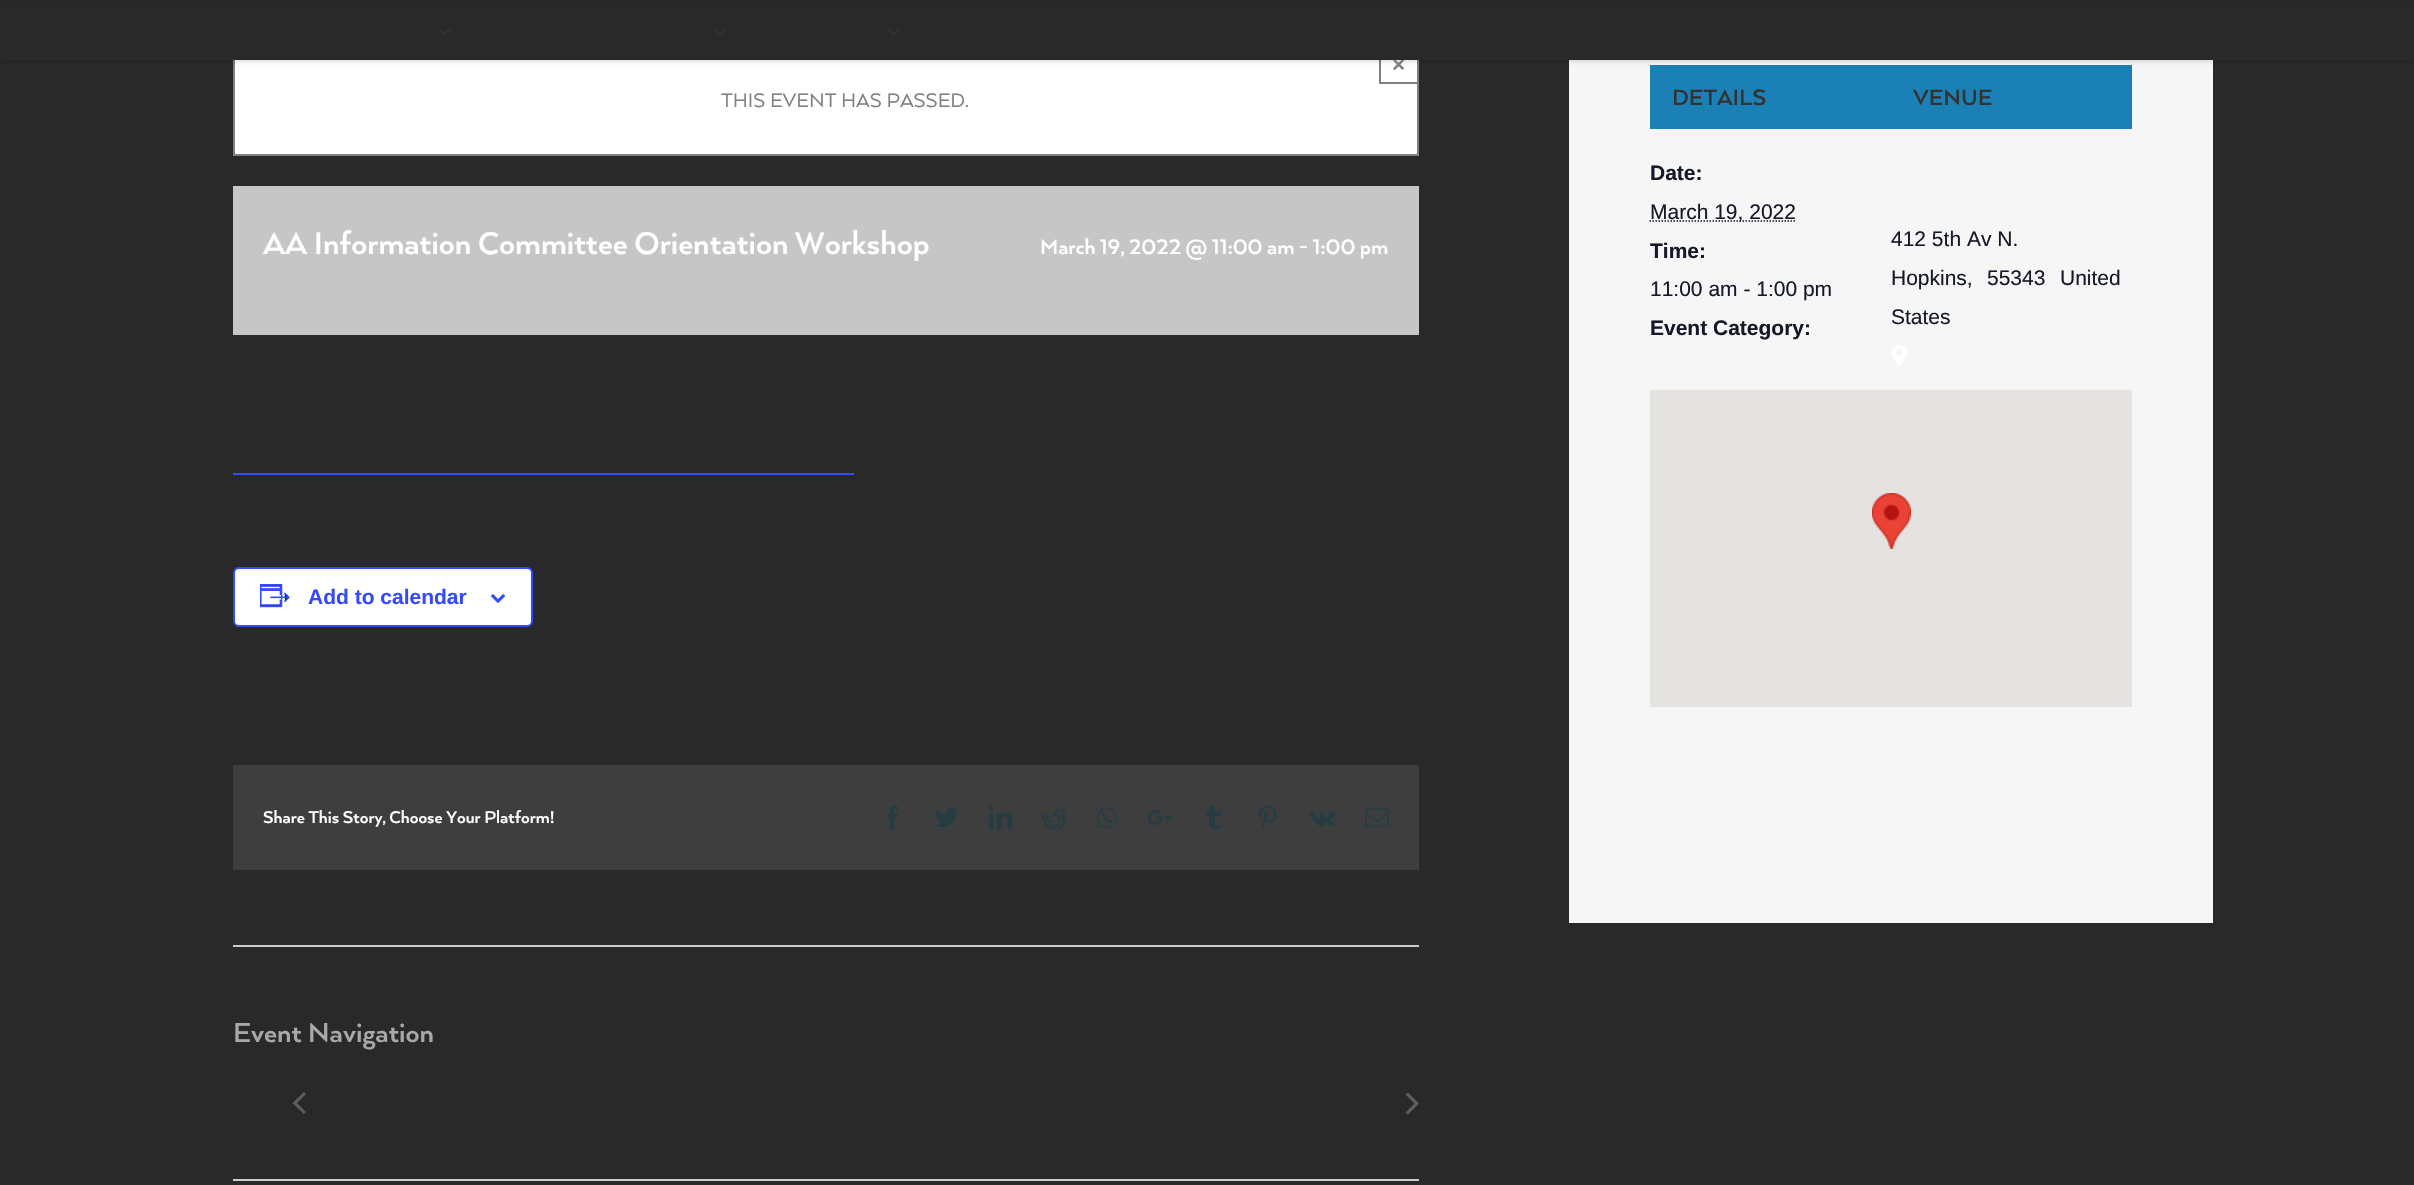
#include "include/core/SkBlurTypes.h"
#include "include/core/SkCanvas.h"
#include "include/core/SkData.h"
#include "include/core/SkFont.h"
#include "include/core/SkFontMgr.h"
#include "include/core/SkImage.h"
#include "include/core/SkMaskFilter.h"
#include "include/core/SkPaint.h"
#include "include/core/SkPathBuilder.h"
#include "include/core/SkTextBlob.h"
#include "include/effects/SkDashPathEffect.h"
#include "include/effects/SkGradientShader.h"
#include "include/utils/SkParsePath.h"

extern sk_sp<SkFontMgr> fontMgr;

static SkFont font(const char* family, int weight, float size, bool italic = false) {
    SkFontStyle style(weight, SkFontStyle::kNormal_Width,
        italic ? SkFontStyle::kItalic_Slant : SkFontStyle::kUpright_Slant);
    SkFont result(fontMgr->matchFamilyStyle(family, style), size);
    result.setSubpixel(true);
    return result;
}

static void drawLabel(SkCanvas* canvas, const char* s, float x, float y, const SkFont& font, SkColor color) {
    SkPaint ink(SkColor4f::FromColor(color));
    ink.setAntiAlias(true);
    canvas->drawString(s, x, y, font, ink);
}

static void fillRect(SkCanvas* canvas, float x, float y, float w, float h, SkColor color) {
    SkPaint ink(SkColor4f::FromColor(color));
    ink.setAntiAlias(true);
    canvas->drawRect(SkRect::MakeXYWH(x, y, w, h), ink);
}

static void drawPhoto(SkCanvas* canvas, const char* path, float x, float y, float w, float h) {
    auto image = SkImages::DeferredFromEncodedData(SkData::MakeFromFileName(path));
    canvas->drawImageRect(image, SkRect::MakeXYWH(x, y, w, h), SkSamplingOptions());
}

static SkPath parsePath(const char* data, bool evenOdd = false) {
    SkPath result = *SkParsePath::FromSVGString(data);
    if (evenOdd) result.setFillType(SkPathFillType::kEvenOdd);
    return result;
}

void draw(SkCanvas* canvas) {
    SkPaint paint;
    paint.setAntiAlias(true);
    canvas->clear(0xFF29292A);
    fillRect(canvas, 235, 60, 1182, 94, 0xFFFFFFFF);
    paint.setStroke(true);
    paint.setStrokeWidth(2);
    paint.setColor(0xFF808080);
    canvas->drawRect(SkRect::MakeXYWH(234, 45, 1184, 110), paint);
    canvas->drawRect(SkRect::MakeXYWH(1380, 45, 38, 38), paint);
    fillRect(canvas, 1569, 60, 644, 863, 0xFFF6F6F6);
    fillRect(canvas, 1650, 65, 482, 64, 0xFF1A80B6);
    paint.setStroke(false);
    paint.setColor(0x1F000000);
    paint.setMaskFilter(SkMaskFilter::MakeBlur(kNormal_SkBlurStyle, 2));
    canvas->drawRect(SkRect::MakeXYWH(0, 2, 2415, 60), paint);
    paint.setMaskFilter(nullptr);
    SkFont font1 = font("Liberation Sans", 700, 22.5f);
    drawLabel(canvas, "×", 1392, 72, font1, 0xFF808080);
    fillRect(canvas, 0, 2, 2414, 58, 0xFF29292A);
    drawPhoto(canvas, "assets/img1.png", 439, 29, 12, 6);
    drawPhoto(canvas, "assets/img2.png", 713, 29, 12, 6);
    drawPhoto(canvas, "assets/img2.png", 887, 29, 12, 6);
    SkFont font2 = font("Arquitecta", 400, 22.5f);
    drawLabel(canvas, "THIS EVENT HAS PASSED.", 721, 107, font2, 0xFF808080);
    fillRect(canvas, 233, 186, 1186, 149, 0xFFC6C6C6);
    SkFont font3 = font("Arquitecta", 700, 36);
    drawLabel(canvas, "AA Information Committee Orientation Workshop", 263, 254, font3, 0xFFFFFFFF);
    SkFont font4 = font("Arquitecta", 700, 24);
    drawLabel(canvas, "March 19, 2022 @ 11:00 am - 1:00 pm", 1040, 254, font4, 0xFFFFFFFF);
    fillRect(canvas, 233, 473, 621, 2, 0xFF334AFF);
    paint.setColor(0xFFFFFFFF);
    canvas->drawRoundRect(SkRect::MakeXYWH(234, 568, 298, 58), 5, 5, paint);
    paint.setStroke(true);
    paint.setColor(0xFF334AFF);
    canvas->drawRoundRect(SkRect::MakeXYWH(234, 568, 298, 58), 5, 5, paint);
    drawPhoto(canvas, "assets/img3.png", 260, 584, 30, 24);
    SkFont font5 = font("Liberation Sans", 700, 21);
    drawLabel(canvas, "Add to calendar", 308, 604, font5, 0xFF334AFF);
    drawPhoto(canvas, "assets/img4.png", 491, 594, 15, 9);
    fillRect(canvas, 233, 765, 1186, 105, 0xFF3E3E3E);
    SkFont font6 = font("Arquitecta", 700, 19.5f);
    drawLabel(canvas, "Share This Story, Choose Your Platform!", 263, 823, font6, 0xFFFFFFFF);
    drawPhoto(canvas, "assets/img5.png", 886, 805, 12, 25);
    drawPhoto(canvas, "assets/img6.png", 935, 807, 23, 21);
    drawPhoto(canvas, "assets/img7.png", 988, 805, 25, 25);
    drawPhoto(canvas, "assets/img8.png", 1042, 808, 25, 22);
    drawPhoto(canvas, "assets/img9.png", 1096, 807, 21, 21);
    drawPhoto(canvas, "assets/img10.png", 1147, 809, 25, 16);
    drawPhoto(canvas, "assets/img11.png", 1206, 805, 15, 25);
    drawPhoto(canvas, "assets/img12.png", 1258, 805, 19, 24);
    drawPhoto(canvas, "assets/img13.png", 1309, 811, 26, 16);
    drawPhoto(canvas, "assets/img14.png", 1365, 808, 24, 20);
    fillRect(canvas, 233, 945, 1186, 2, 0xFFCCCCCC);
    fillRect(canvas, 233, 1179, 1186, 2, 0xFFCCCCCC);
    SkFont font7 = font("Arquitecta", 700, 31.5f);
    drawLabel(canvas, "Event Navigation", 233, 1042, font7, 0xFFA8A8A8);
    paint.setStroke(false);
    paint.setColor(0xFF5D5D5D);
    canvas->drawPath(parsePath("M306 1112L304 1114L292.5 1103L304 1092L306 1094L297 1103Z"), paint);
    canvas->drawPath(parsePath("M1405.5 1094.5L1408 1092.5L1419 1103.5L1408 1114.5L1405.5 1112.5L1414.5 1103.5Z"), paint);
    SkFont font8 = font("Arquitecta", 700, 25.5f);
    drawLabel(canvas, "DETAILS", 1672, 105, font8, 0xFF333333);
    drawLabel(canvas, "Date:", 1650, 180, font5, 0xFF141827);
    paint.setStroke(true);
    paint.setStrokeWidth(1.5f);
    paint.setColor(0xFF141827);
    paint.setPathEffect(SkDashPathEffect::Make({{1.5f, 1.5f}}, 0));
    canvas->drawPath(parsePath("M1649.5 221H1795.5"), paint);
    paint.setPathEffect(nullptr);
    SkFont font9 = font("Liberation Sans", 400, 21);
    drawLabel(canvas, "March 19, 2022", 1650, 219, font9, 0xFF141827);
    drawLabel(canvas, "Time:", 1650, 258, font5, 0xFF141827);
    drawLabel(canvas, "11:00 am - 1:00 pm", 1650, 296, font9, 0xFF141827);
    drawLabel(canvas, "Event Category:", 1650, 335, font5, 0xFF141827);
    drawLabel(canvas, "VENUE", 1913, 105, font8, 0xFF333333);
    drawLabel(canvas, "412 5th Av N.", 1891, 246, font9, 0xFF141827);
    drawLabel(canvas, "Hopkins,", 1891, 285, font9, 0xFF141827);
    drawLabel(canvas, "55343", 1987, 285, font9, 0xFF141827);
    drawLabel(canvas, "United", 2060, 285, font9, 0xFF141827);
    drawLabel(canvas, "States", 1891, 324, font9, 0xFF141827);
    drawPhoto(canvas, "assets/img15.png", 1891, 345, 16, 21);
    fillRect(canvas, 1650, 390, 482, 317, 0xFFE5E3DF);
    drawPhoto(canvas, "assets/img16.png", 1872, 493, 39, 56);
}
